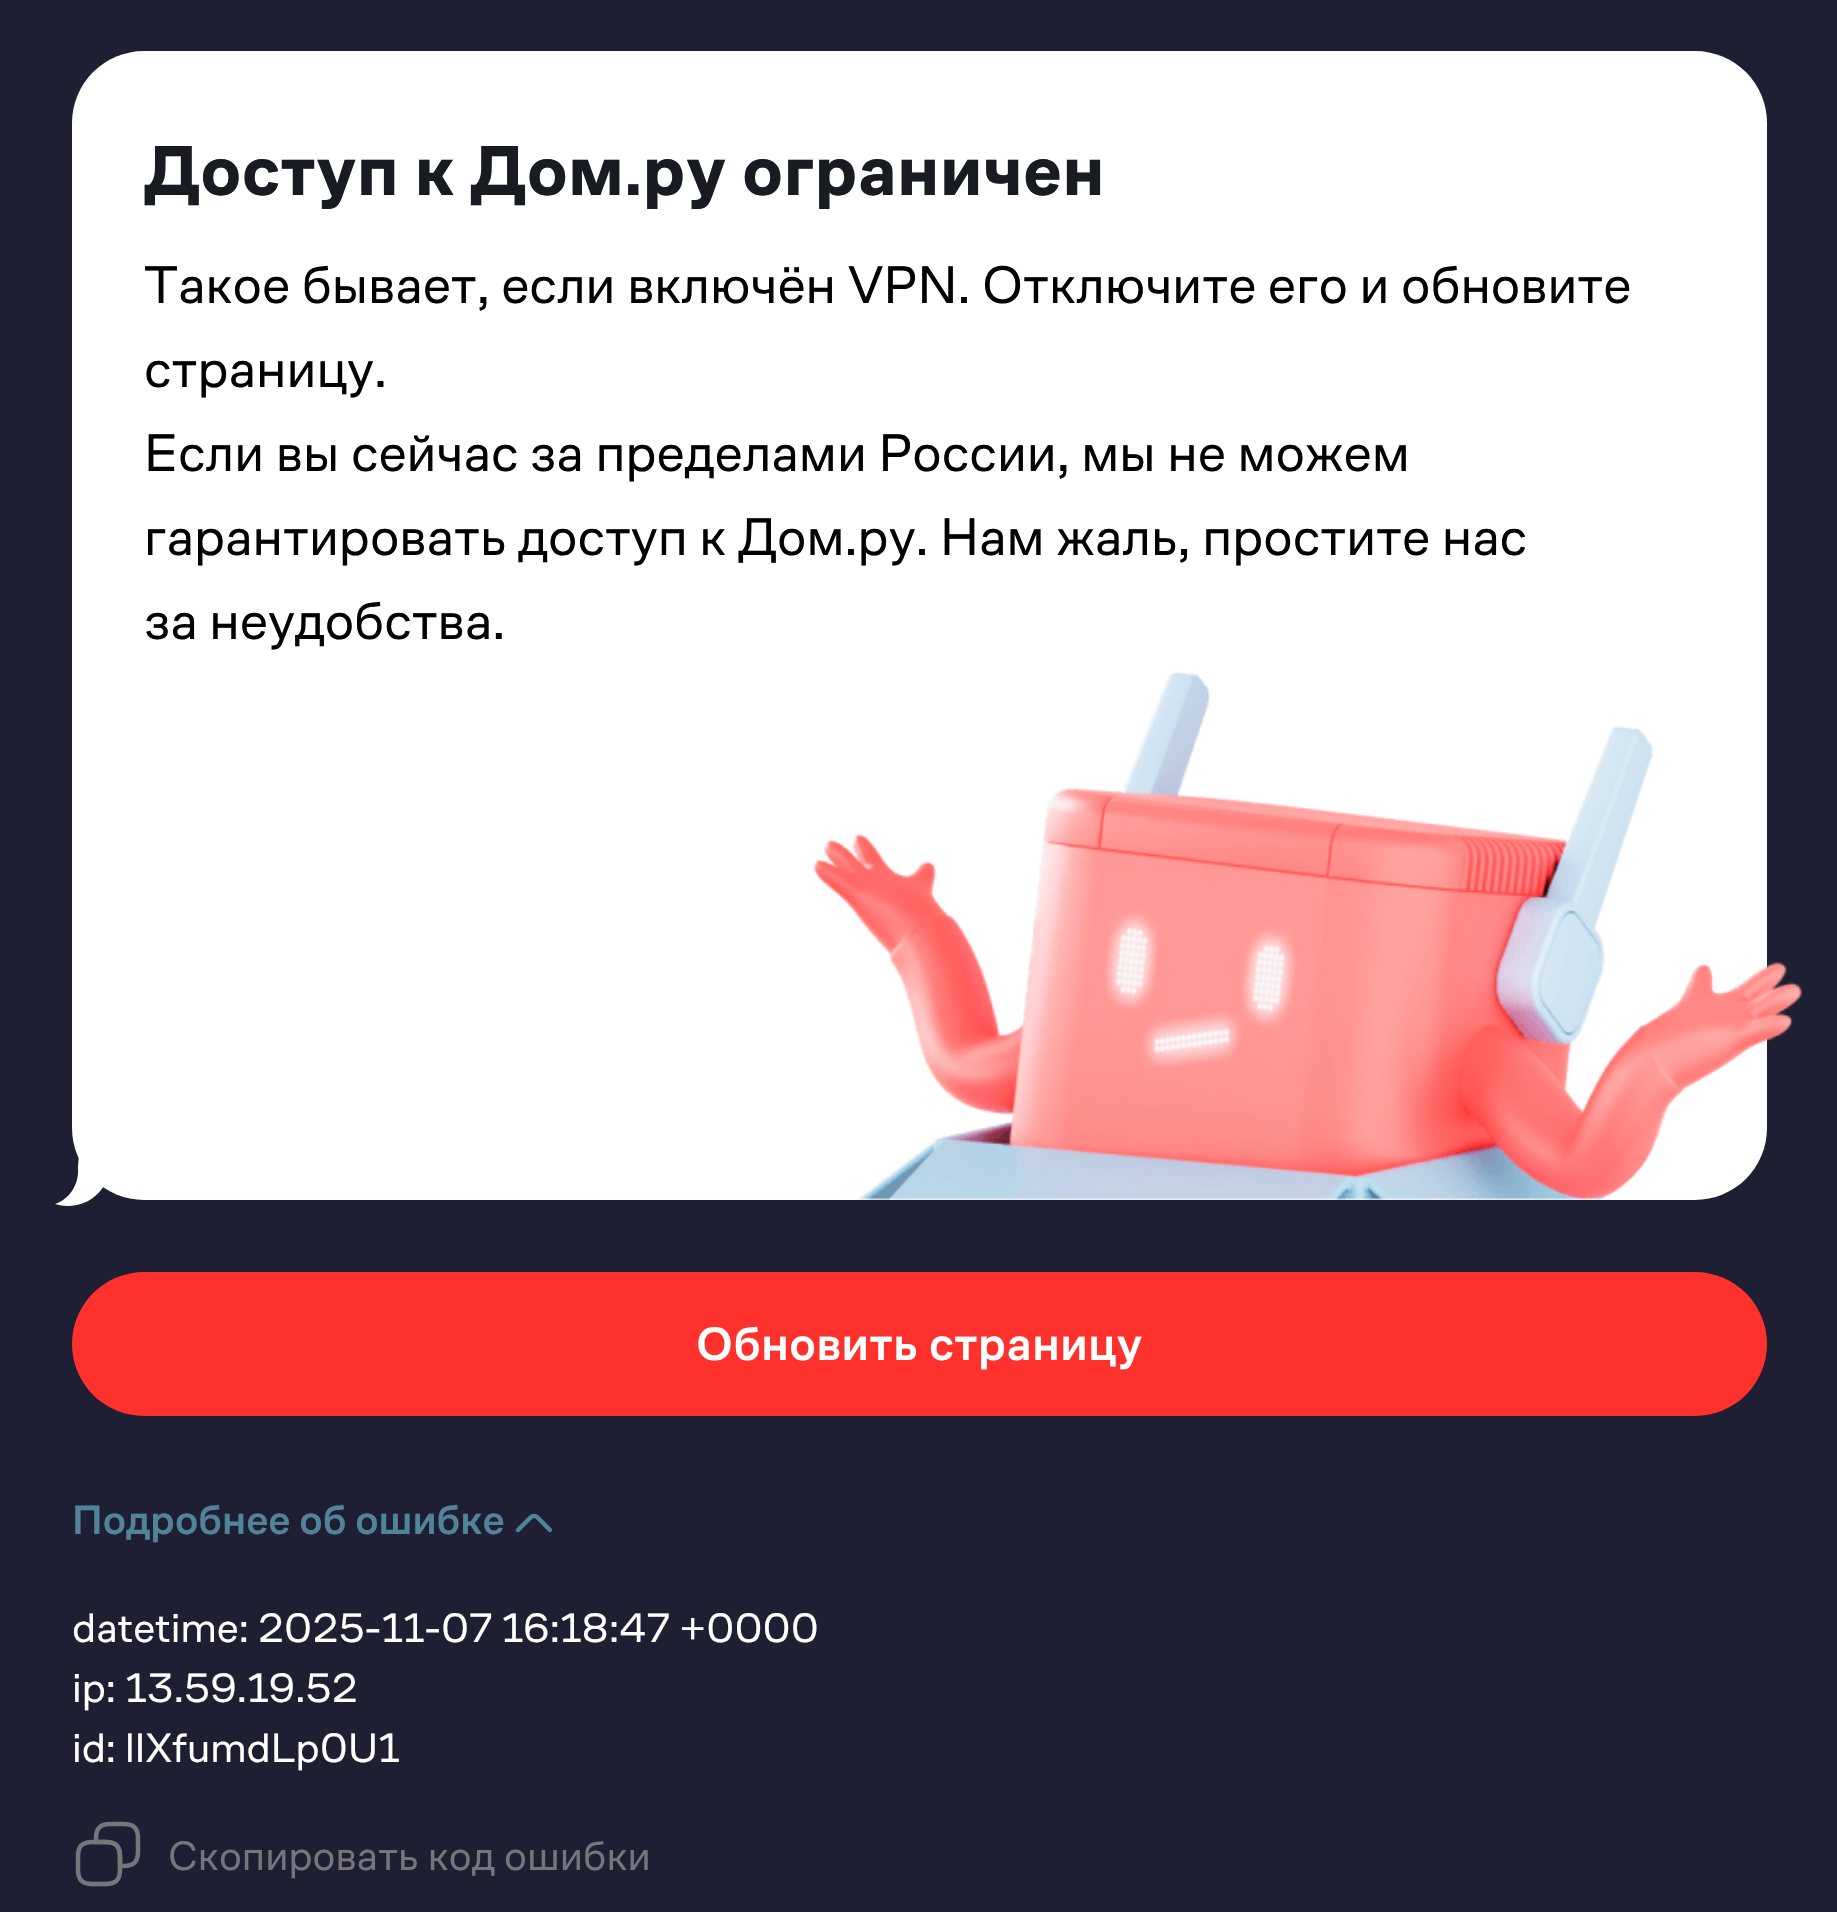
#include "include/core/SkBlurTypes.h"
#include "include/core/SkCanvas.h"
#include "include/core/SkData.h"
#include "include/core/SkFont.h"
#include "include/core/SkFontMgr.h"
#include "include/core/SkImage.h"
#include "include/core/SkMaskFilter.h"
#include "include/core/SkPaint.h"
#include "include/core/SkPathBuilder.h"
#include "include/core/SkTextBlob.h"
#include "include/effects/SkDashPathEffect.h"
#include "include/effects/SkGradientShader.h"
#include "include/utils/SkParsePath.h"

extern sk_sp<SkFontMgr> fontMgr;

static SkFont font(const char* family, int weight, float size, bool italic = false) {
    SkFontStyle style(weight, SkFontStyle::kNormal_Width,
        italic ? SkFontStyle::kItalic_Slant : SkFontStyle::kUpright_Slant);
    SkFont result(fontMgr->matchFamilyStyle(family, style), size);
    result.setSubpixel(true);
    return result;
}

static void drawLabel(SkCanvas* canvas, const char* s, float x, float y, const SkFont& font, SkColor color) {
    SkPaint ink(SkColor4f::FromColor(color));
    ink.setAntiAlias(true);
    canvas->drawString(s, x, y, font, ink);
}

static void drawTracked(SkCanvas* canvas, const char* s, float x, float y, const SkFont& font, const SkPaint& ink, float letter, float word) {
    std::vector<SkGlyphID> glyphs(font.countText(s, strlen(s), SkTextEncoding::kUTF8));
    std::vector<float> xs(glyphs.size());
    font.textToGlyphs(s, strlen(s), SkTextEncoding::kUTF8, glyphs);
    font.getXPos(glyphs, xs, x);
    float extra = 0;
    for (size_t i = 0; i < glyphs.size(); i++) {
        xs[i] += extra;
        extra += letter + word * (glyphs[i] == font.unicharToGlyph(' '));
    }
    canvas->drawTextBlob(SkTextBlob::MakeFromPosHGlyphs(glyphs, xs, y, font), 0, 0, ink);
}

static void fillRRect(SkCanvas* canvas, float x, float y, float w, float h, float radius, SkColor color) {
    SkPaint ink(SkColor4f::FromColor(color));
    ink.setAntiAlias(true);
    canvas->drawRoundRect(SkRect::MakeXYWH(x, y, w, h), radius, radius, ink);
}

static void drawPhoto(SkCanvas* canvas, const char* path, float x, float y, float w, float h) {
    auto image = SkImages::DeferredFromEncodedData(SkData::MakeFromFileName(path));
    canvas->drawImageRect(image, SkRect::MakeXYWH(x, y, w, h), SkSamplingOptions());
}

static SkPath parsePath(const char* data, bool evenOdd = false) {
    SkPath result = *SkParsePath::FromSVGString(data);
    if (evenOdd) result.setFillType(SkPathFillType::kEvenOdd);
    return result;
}

void draw(SkCanvas* canvas) {
    SkPaint paint;
    paint.setAntiAlias(true);
    canvas->clear(0xFF1E1F33);
    fillRRect(canvas, 72, 51, 1695, 1149, 72, 0xFFFFFFFF);
    SkFont font1 = font("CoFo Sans", 700, 72);
    paint.setColor(0xFF181B21);
    drawTracked(canvas, "Доступ к Дом.ру ограничен", 144, 195, font1, paint, 0.75f, 0);
    SkFont font2 = font("CoFo Sans", 400, 54);
    drawLabel(canvas, "Такое бывает, если включён VPN. Отключите его и обновите", 144, 303, font2, 0xFF000000);
    drawLabel(canvas, "страницу.", 144, 387, font2, 0xFF000000);
    drawLabel(canvas, "Если вы сейчас за пределами России, мы не можем", 144, 471, font2, 0xFF000000);
    drawLabel(canvas, "гарантировать доступ к Дом.ру. Нам жаль, простите нас", 144, 555, font2, 0xFF000000);
    drawLabel(canvas, "за неудобства.", 144, 639, font2, 0xFF000000);
    paint.setColor(0xFFFFFFFF);
    canvas->drawPath(parsePath("M91 1125C104 1118 111 1142 111 1162C111 1186 92 1206 68 1206C63 1206 59 1205 55 1204C70 1199 79 1184 78 1169C78 1169 79 1131 91 1125Z", true), paint);
    drawPhoto(canvas, "assets/img1.png", 813, 671, 989, 529);
    fillRRect(canvas, 72, 1272, 1695, 144, 72, 0xFFFF312C);
    SkFont font3 = font("CoFo Sans", 500, 48);
    drawTracked(canvas, "Обновить страницу", 696, 1360, font3, paint, 0.5f, 0);
    SkFont font4 = font("CoFo Sans", 500, 42);
    drawLabel(canvas, "Подробнее об ошибке", 72, 1534, font4, 0xFF518399);
    paint.setStroke(true);
    paint.setStrokeWidth(4.5f);
    paint.setStrokeCap(SkPaint::kRound_Cap);
    paint.setStrokeJoin(SkPaint::kRound_Join);
    paint.setColor(0xFF518399);
    canvas->drawPath(parsePath("M518 1530L531 1517C532.5 1515.5 535.5 1515.5 537 1517L550 1530"), paint);
    SkFont font5 = font("CoFo Sans", 400, 42);
    drawLabel(canvas, "datetime: 2025-11-07 16:18:47 +0000", 72, 1642, font5, 0xFFFFFFFF);
    drawLabel(canvas, "ip: 13.59.19.52", 72, 1702, font5, 0xFFFFFFFF);
    drawLabel(canvas, "id: lIXfumdLp0U1", 72, 1762, font5, 0xFFFFFFFF);
    drawPhoto(canvas, "assets/img2.png", 75, 1821, 66, 66);
    drawLabel(canvas, "Скопировать код ошибки", 168, 1870, font5, 0xFF74767A);
}
